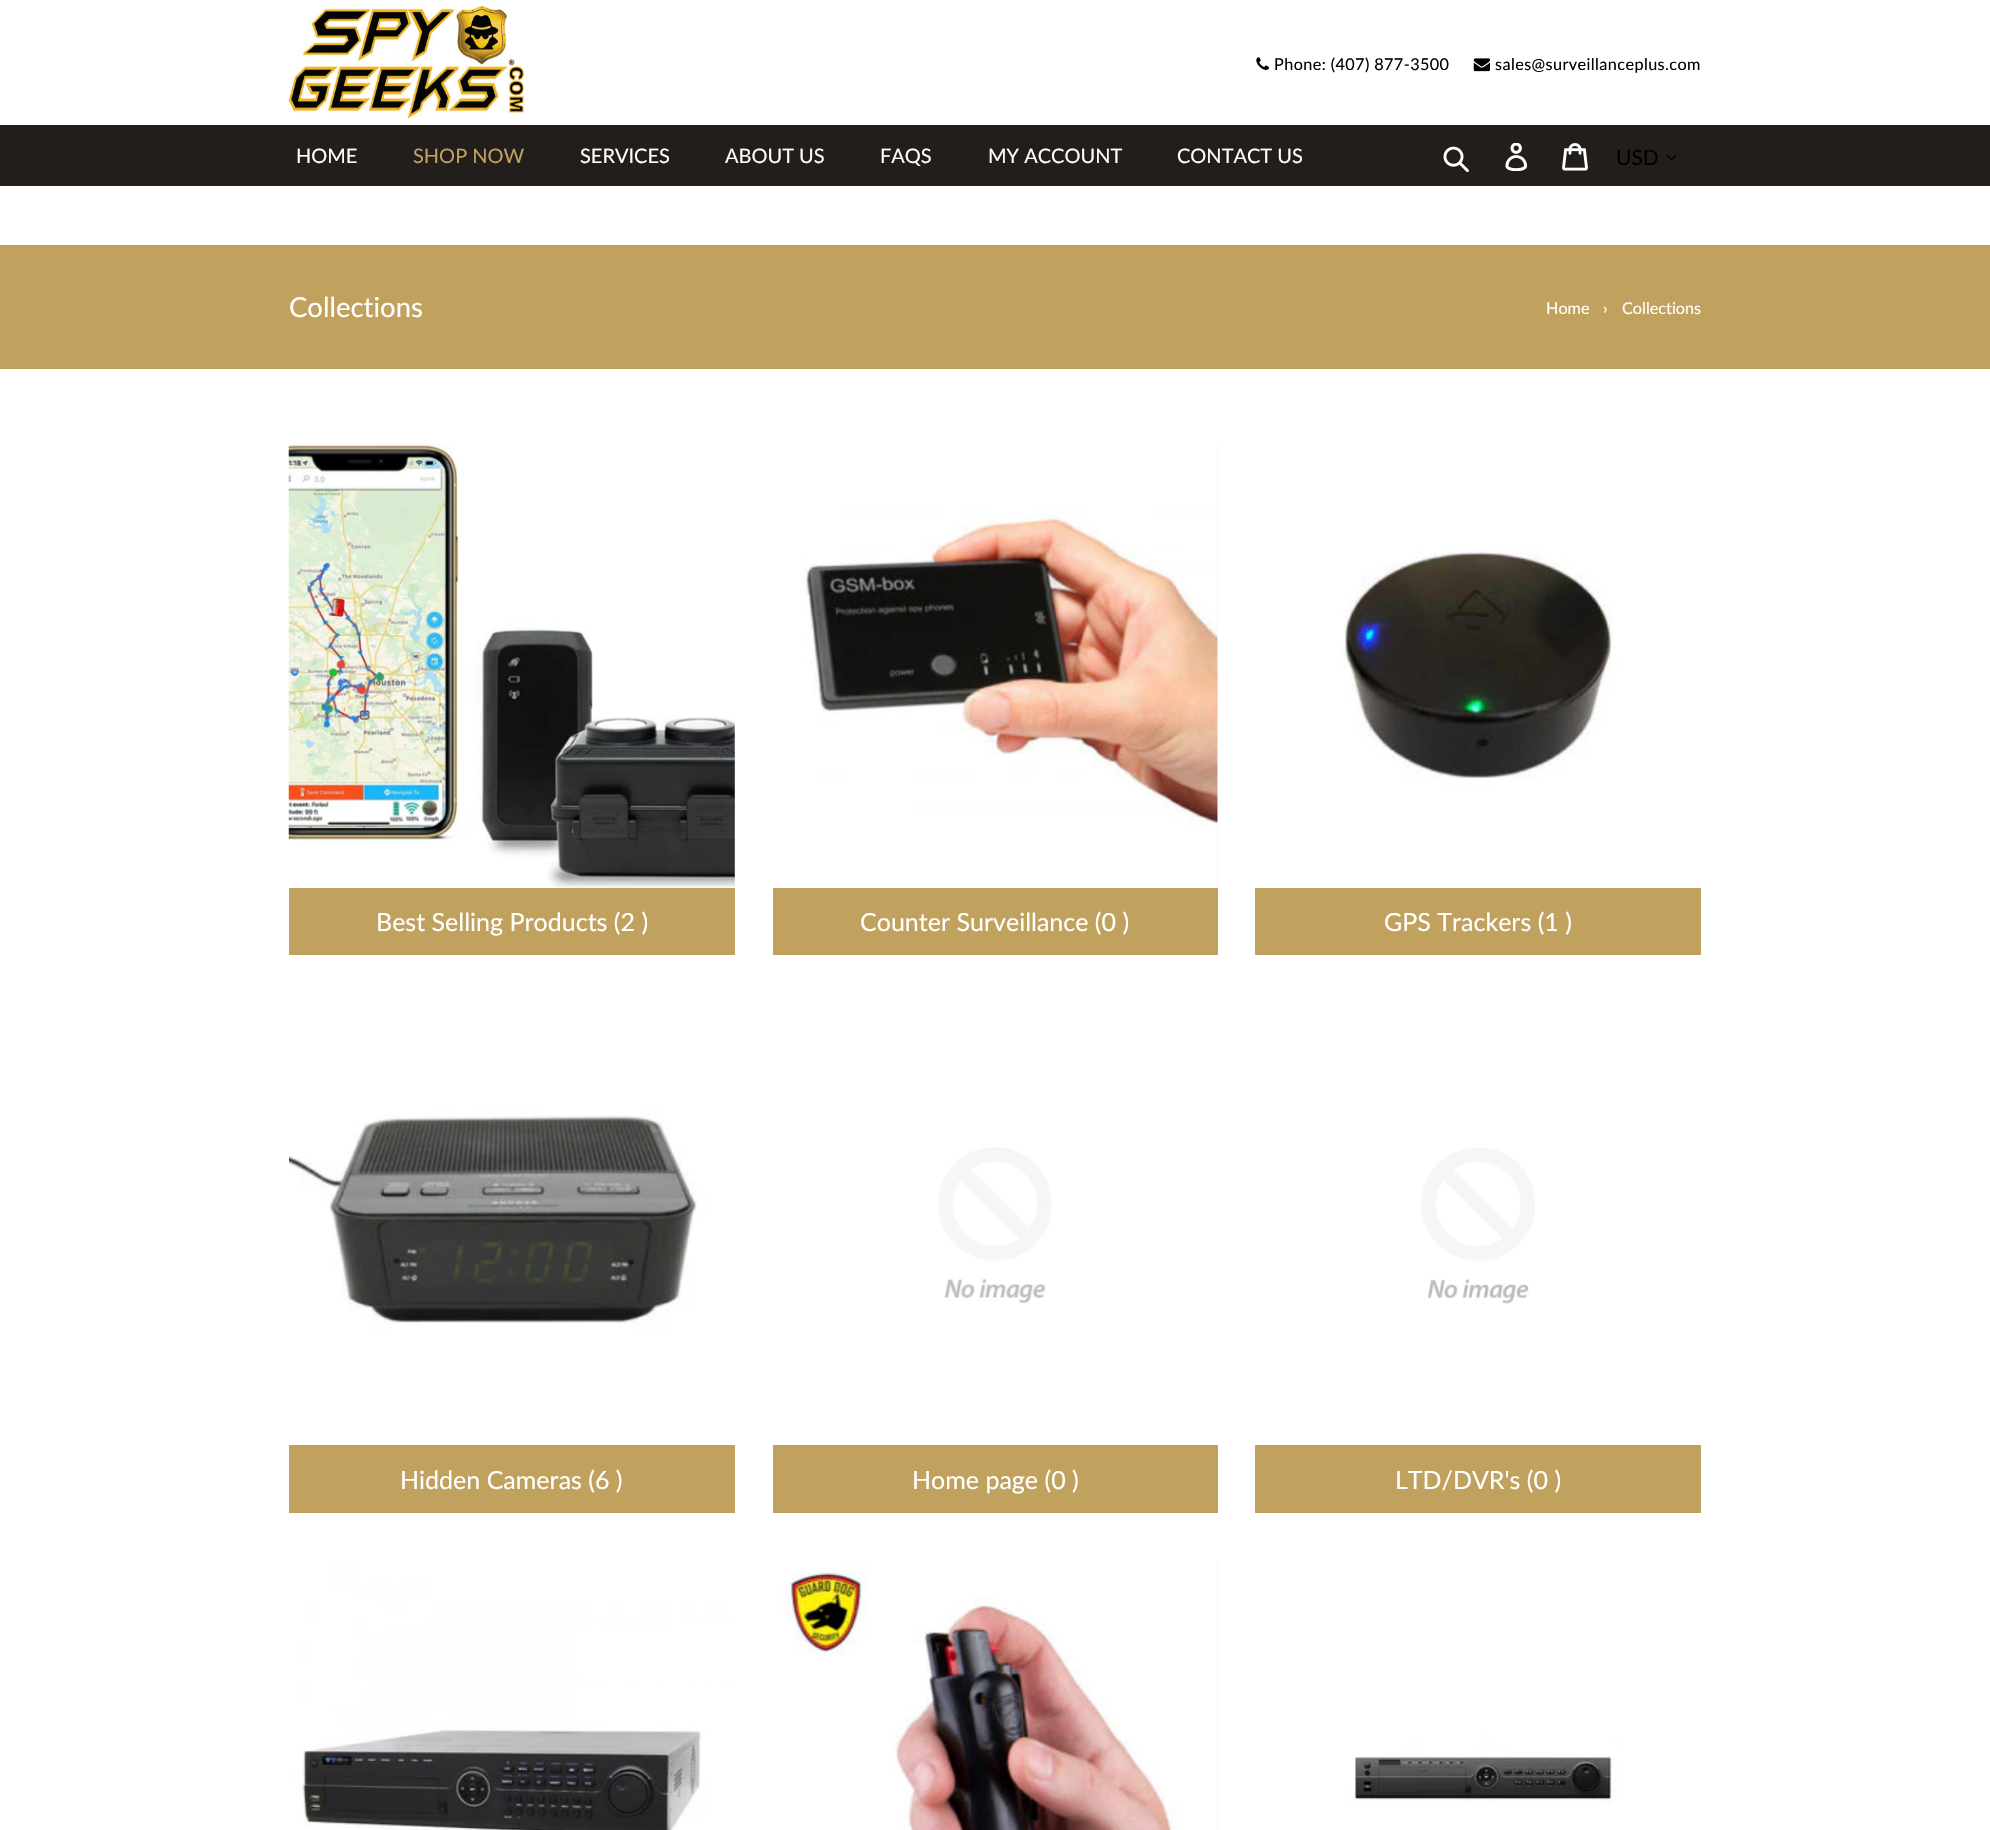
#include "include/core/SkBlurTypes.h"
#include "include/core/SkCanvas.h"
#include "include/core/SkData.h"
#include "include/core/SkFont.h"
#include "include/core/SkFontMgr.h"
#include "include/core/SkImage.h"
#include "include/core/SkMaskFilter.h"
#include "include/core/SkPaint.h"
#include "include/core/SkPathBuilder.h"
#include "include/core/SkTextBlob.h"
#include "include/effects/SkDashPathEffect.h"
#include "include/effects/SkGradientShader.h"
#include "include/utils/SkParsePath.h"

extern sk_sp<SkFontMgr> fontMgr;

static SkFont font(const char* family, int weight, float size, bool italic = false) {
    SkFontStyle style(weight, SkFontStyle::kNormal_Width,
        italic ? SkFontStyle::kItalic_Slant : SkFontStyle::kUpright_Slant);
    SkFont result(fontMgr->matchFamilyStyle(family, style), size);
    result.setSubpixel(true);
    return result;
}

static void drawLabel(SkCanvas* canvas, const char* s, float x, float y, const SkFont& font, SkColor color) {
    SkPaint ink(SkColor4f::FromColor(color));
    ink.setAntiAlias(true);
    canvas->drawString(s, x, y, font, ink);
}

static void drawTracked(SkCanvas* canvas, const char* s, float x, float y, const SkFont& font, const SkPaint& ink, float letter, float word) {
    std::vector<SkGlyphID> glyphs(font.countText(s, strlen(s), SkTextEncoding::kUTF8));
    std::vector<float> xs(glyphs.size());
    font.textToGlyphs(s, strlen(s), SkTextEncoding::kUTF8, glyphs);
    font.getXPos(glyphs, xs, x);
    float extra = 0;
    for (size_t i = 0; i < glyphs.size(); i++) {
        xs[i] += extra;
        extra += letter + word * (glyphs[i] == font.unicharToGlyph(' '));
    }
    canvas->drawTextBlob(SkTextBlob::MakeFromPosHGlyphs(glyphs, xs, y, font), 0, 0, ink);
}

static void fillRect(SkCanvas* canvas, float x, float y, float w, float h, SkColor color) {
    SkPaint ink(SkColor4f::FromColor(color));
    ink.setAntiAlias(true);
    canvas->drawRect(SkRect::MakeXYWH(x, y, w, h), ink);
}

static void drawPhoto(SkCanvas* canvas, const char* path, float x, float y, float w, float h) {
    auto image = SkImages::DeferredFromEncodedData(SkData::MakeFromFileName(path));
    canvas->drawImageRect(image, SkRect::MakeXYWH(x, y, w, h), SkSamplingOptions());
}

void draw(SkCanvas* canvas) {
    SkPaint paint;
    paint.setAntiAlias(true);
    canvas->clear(0xFFFFFFFF);
    drawPhoto(canvas, "assets/img1.png", 288, 6, 236, 113);
    drawPhoto(canvas, "assets/img2.png", 1256, 57, 13, 13);
    SkFont font1 = font("Lato", 400, 16.25f);
    paint.setColor(0xFF000000);
    drawTracked(canvas, "Phone: (407) 877-3500", 1274, 70, font1, paint, 0.4f, 0);
    drawPhoto(canvas, "assets/img3.png", 1473, 58, 17, 14);
    drawTracked(canvas, "sales@surveillanceplus.com", 1495, 70, font1, paint, 0.4f, 0);
    fillRect(canvas, 0, 125, 1990, 61, 0xFF211E1B);
    SkFont font2 = font("Lato", 400, 20);
    drawLabel(canvas, "HOME", 296, 163, font2, 0xFFFFFFFF);
    drawLabel(canvas, "SHOP NOW", 413, 163, font2, 0xFFC1A15E);
    drawLabel(canvas, "SERVICES", 580, 163, font2, 0xFFFFFFFF);
    drawLabel(canvas, "ABOUT US", 725, 163, font2, 0xFFFFFFFF);
    drawLabel(canvas, "FAQS", 880, 163, font2, 0xFFFFFFFF);
    drawLabel(canvas, "MY ACCOUNT", 988, 163, font2, 0xFFFFFFFF);
    drawLabel(canvas, "CONTACT US", 1177, 163, font2, 0xFFFFFFFF);
    drawPhoto(canvas, "assets/img4.png", 1443, 146, 26, 27);
    drawPhoto(canvas, "assets/img5.png", 1505, 143, 23, 28);
    drawPhoto(canvas, "assets/img6.png", 1562, 143, 26, 28);
    SkFont font3 = font("Lato", 400, 21);
    drawLabel(canvas, "USD", 1616, 165, font3, 0xFF000000);
    drawPhoto(canvas, "assets/img7.png", 1666, 154, 10, 7);
    fillRect(canvas, 0, 245, 1990, 124, 0xFFC1A15E);
    SkFont font4 = font("Lato", 400, 27.5f);
    drawLabel(canvas, "Collections", 289, 317, font4, 0xFFFFFFFF);
    drawLabel(canvas, "Home", 1546, 314, font1, 0xFFFFFFFF);
    drawLabel(canvas, "›", 1603, 314, font1, 0xFFFFFFFF);
    drawLabel(canvas, "Collections", 1622, 314, font1, 0xFFFFFFFF);
    drawPhoto(canvas, "assets/img8.png", 288, 444, 447, 446);
    fillRect(canvas, 289, 888, 446, 67, 0xFFC1A15E);
    SkFont font5 = font("Lato", 400, 25);
    drawLabel(canvas, "Best Selling Products (2 )", 376, 931, font5, 0xFFFFFFFF);
    fillRect(canvas, 773, 444, 445, 444, 0xFFF7F7F7);
    drawPhoto(canvas, "assets/img9.png", 773, 444, 445, 444);
    fillRect(canvas, 773, 888, 445, 67, 0xFFC1A15E);
    drawLabel(canvas, "Counter Surveillance (0 )", 860, 931, font5, 0xFFFFFFFF);
    drawPhoto(canvas, "assets/img10.png", 1255, 444, 446, 444);
    fillRect(canvas, 1255, 888, 446, 67, 0xFFC1A15E);
    drawLabel(canvas, "GPS Trackers (1 )", 1384, 931, font5, 0xFFFFFFFF);
    drawPhoto(canvas, "assets/img11.png", 289, 1003, 446, 442);
    fillRect(canvas, 289, 1445, 446, 68, 0xFFC1A15E);
    drawLabel(canvas, "Hidden Cameras (6 )", 400, 1489, font5, 0xFFFFFFFF);
    drawPhoto(canvas, "assets/img12.png", 938, 1147, 114, 157);
    fillRect(canvas, 773, 1445, 445, 68, 0xFFC1A15E);
    drawLabel(canvas, "Home page (0 )", 912, 1489, font5, 0xFFFFFFFF);
    drawPhoto(canvas, "assets/img13.png", 1421, 1147, 114, 157);
    fillRect(canvas, 1255, 1445, 446, 68, 0xFFC1A15E);
    drawLabel(canvas, "LTD/DVR's (0 )", 1395, 1489, font5, 0xFFFFFFFF);
    drawPhoto(canvas, "assets/img14.png", 289, 1560, 446, 270);
    fillRect(canvas, 773, 1560, 445, 270, 0xFFF7F7F7);
    drawPhoto(canvas, "assets/img15.png", 773, 1560, 444, 270);
    drawPhoto(canvas, "assets/img16.png", 1255, 1560, 446, 270);
}
